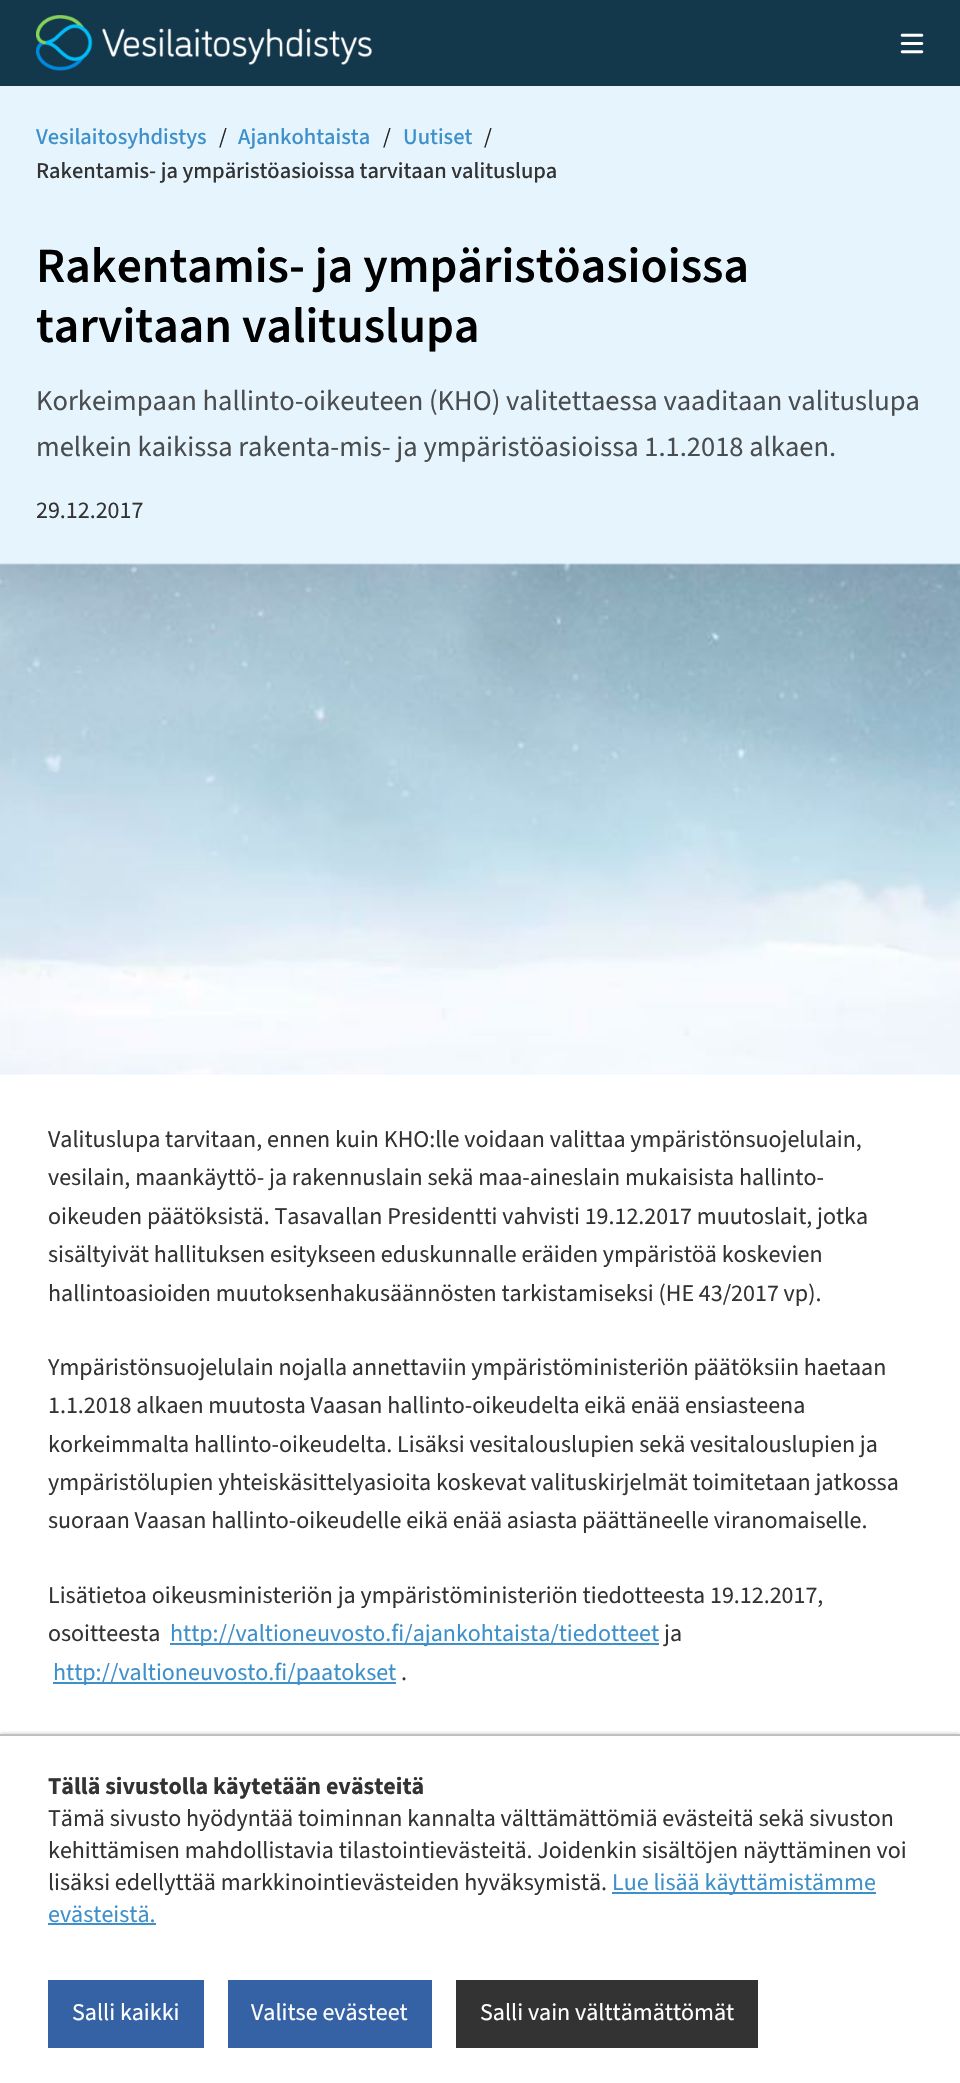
#include "include/core/SkBlurTypes.h"
#include "include/core/SkCanvas.h"
#include "include/core/SkData.h"
#include "include/core/SkFont.h"
#include "include/core/SkFontMgr.h"
#include "include/core/SkImage.h"
#include "include/core/SkMaskFilter.h"
#include "include/core/SkPaint.h"
#include "include/core/SkPathBuilder.h"
#include "include/core/SkTextBlob.h"
#include "include/effects/SkDashPathEffect.h"
#include "include/effects/SkGradientShader.h"
#include "include/utils/SkParsePath.h"

extern sk_sp<SkFontMgr> fontMgr;

static SkFont font(const char* family, int weight, float size, bool italic = false) {
    SkFontStyle style(weight, SkFontStyle::kNormal_Width,
        italic ? SkFontStyle::kItalic_Slant : SkFontStyle::kUpright_Slant);
    SkFont result(fontMgr->matchFamilyStyle(family, style), size);
    result.setSubpixel(true);
    return result;
}

static void drawLabel(SkCanvas* canvas, const char* s, float x, float y, const SkFont& font, SkColor color) {
    SkPaint ink(SkColor4f::FromColor(color));
    ink.setAntiAlias(true);
    canvas->drawString(s, x, y, font, ink);
}

static void fillRect(SkCanvas* canvas, float x, float y, float w, float h, SkColor color) {
    SkPaint ink(SkColor4f::FromColor(color));
    ink.setAntiAlias(true);
    canvas->drawRect(SkRect::MakeXYWH(x, y, w, h), ink);
}

static void drawPhoto(SkCanvas* canvas, const char* path, float x, float y, float w, float h) {
    auto image = SkImages::DeferredFromEncodedData(SkData::MakeFromFileName(path));
    canvas->drawImageRect(image, SkRect::MakeXYWH(x, y, w, h), SkSamplingOptions());
}

void draw(SkCanvas* canvas) {
    SkPaint paint;
    paint.setAntiAlias(true);
    canvas->clear(0xFFFFFFFF);
    fillRect(canvas, 0, 0, 960, 86, 0xFF13374B);
    drawPhoto(canvas, "assets/img1.png", 36, 15, 336, 56);
    drawPhoto(canvas, "assets/img2.png", 900, 33, 24, 21);
    fillRect(canvas, 0, 86, 960, 988, 0xFFE6F4FD);
    SkFont font1 = font("Source Sans 3", 500, 22.5f);
    drawLabel(canvas, "Vesilaitosyhdistys", 36, 144, font1, 0xFF3E90CB);
    SkFont font2 = font("Source Sans 3", 400, 22.5f);
    drawLabel(canvas, "/", 219, 144, font2, 0xFF232323);
    drawLabel(canvas, "Ajankohtaista", 238, 144, font1, 0xFF3E90CB);
    drawLabel(canvas, "/", 383, 144, font2, 0xFF232323);
    drawLabel(canvas, "Uutiset", 403, 144, font1, 0xFF3E90CB);
    drawLabel(canvas, "/", 484, 144, font2, 0xFF232323);
    drawLabel(canvas, "Rakentamis- ja ympäristöasioissa tarvitaan valituslupa", 36, 178, font1, 0xFF333333);
    SkFont font3 = font("Source Sans 3", 600, 49.5f);
    drawLabel(canvas, "Rakentamis- ja ympäristöasioissa", 36, 282, font3, 0xFF000000);
    drawLabel(canvas, "tarvitaan valituslupa", 36, 342, font3, 0xFF000000);
    SkFont font4 = font("Source Sans 3", 400, 28.5f);
    drawLabel(canvas, "Korkeimpaan hallinto-oikeuteen (KHO) valitettaessa vaaditaan valituslupa", 36, 410, font4, 0xFF4A4D4F);
    drawLabel(canvas, "melkein kaikissa rakenta-mis- ja ympäristöasioissa 1.1.2018 alkaen.", 36, 456, font4, 0xFF4A4D4F);
    SkFont font5 = font("Source Sans 3", 400, 24);
    drawLabel(canvas, "29.12.2017", 36, 518, font5, 0xFF333333);
    drawPhoto(canvas, "assets/img3.png", 0, 563, 960, 512);
    drawLabel(canvas, "Valituslupa tarvitaan, ennen kuin KHO:lle voidaan valittaa ympäristönsuojelulain,", 48, 1147, font5, 0xFF333333);
    drawLabel(canvas, "vesilain, maankäyttö- ja rakennuslain sekä maa-aineslain mukaisista hallinto-", 48, 1185, font5, 0xFF333333);
    drawLabel(canvas, "oikeuden päätöksistä. Tasavallan Presidentti vahvisti 19.12.2017 muutoslait, jotka", 48, 1224, font5, 0xFF333333);
    drawLabel(canvas, "sisältyivät hallituksen esitykseen eduskunnalle eräiden ympäristöä koskevien", 48, 1262, font5, 0xFF333333);
    drawLabel(canvas, "hallintoasioiden muutoksenhakusäännösten tarkistamiseksi (HE 43/2017 vp).", 48, 1301, font5, 0xFF333333);
    drawLabel(canvas, "Ympäristönsuojelulain nojalla annettaviin ympäristöministeriön päätöksiin haetaan", 48, 1375, font5, 0xFF333333);
    drawLabel(canvas, "1.1.2018 alkaen muutosta Vaasan hallinto-oikeudelta eikä enää ensiasteena", 48, 1413, font5, 0xFF333333);
    drawLabel(canvas, "korkeimmalta hallinto-oikeudelta. Lisäksi vesitalouslupien sekä vesitalouslupien ja", 48, 1452, font5, 0xFF333333);
    drawLabel(canvas, "ympäristölupien yhteiskäsittelyasioita koskevat valituskirjelmät toimitetaan jatkossa", 48, 1490, font5, 0xFF333333);
    drawLabel(canvas, "suoraan Vaasan hallinto-oikeudelle eikä enää asiasta päättäneelle viranomaiselle.", 48, 1528, font5, 0xFF333333);
    drawLabel(canvas, "Lisätietoa oikeusministeriön ja ympäristöministeriön tiedotteesta 19.12.2017,", 48, 1603, font5, 0xFF333333);
    drawLabel(canvas, "osoitteesta", 48, 1641, font5, 0xFF333333);
    fillRect(canvas, 170, 1643, 489, 2, 0xFF3E90CB);
    drawLabel(canvas, "http://valtioneuvosto.fi/ajankohtaista/tiedotteet", 170, 1641, font5, 0xFF3E90CB);
    drawLabel(canvas, "ja", 664, 1641, font5, 0xFF333333);
    fillRect(canvas, 53, 1682, 343, 2, 0xFF3E90CB);
    drawLabel(canvas, "http://valtioneuvosto.fi/paatokset", 53, 1680, font5, 0xFF3E90CB);
    drawLabel(canvas, ".", 401, 1680, font5, 0xFF333333);
    canvas->save();
    canvas->clipRect(SkRect::MakeXYWH(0, 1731, 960, 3));
    paint.setColor(0x40000000);
    paint.setMaskFilter(SkMaskFilter::MakeBlur(kNormal_SkBlurStyle, 2));
    canvas->drawRect(SkRect::MakeXYWH(0, 1734, 960, 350), paint);
    paint.setMaskFilter(nullptr);
    canvas->restore();
    fillRect(canvas, 0, 1734, 960, 2, 0xFFBFBFBF);
    SkFont font6 = font("Source Sans 3", 700, 24);
    drawLabel(canvas, "Tällä sivustolla käytetään evästeitä", 48, 1794, font6, 0xFF333333);
    drawLabel(canvas, "Tämä sivusto hyödyntää toiminnan kannalta välttämättömiä evästeitä sekä sivuston", 48, 1826, font5, 0xFF333333);
    drawLabel(canvas, "kehittämisen mahdollistavia tilastointievästeitä. Joidenkin sisältöjen näyttäminen voi", 48, 1858, font5, 0xFF333333);
    drawLabel(canvas, "lisäksi edellyttää markkinointievästeiden hyväksymistä.", 48, 1890, font5, 0xFF333333);
    fillRect(canvas, 612, 1892, 264, 2, 0xFF3E90CB);
    drawLabel(canvas, "Lue lisää käyttämistämme", 612, 1890, font5, 0xFF3E90CB);
    drawLabel(canvas, "evästeistä.", 48, 1922, font5, 0xFF3E90CB);
    fillRect(canvas, 48, 1923, 108, 2, 0xFF3E90CB);
    fillRect(canvas, 48, 1980, 156, 68, 0xFF3562A5);
    drawLabel(canvas, "Salli kaikki", 72, 2020, font5, 0xFFFFFFFF);
    fillRect(canvas, 228, 1980, 204, 68, 0xFF3562A5);
    drawLabel(canvas, "Valitse evästeet", 251, 2020, font5, 0xFFFFFFFF);
    fillRect(canvas, 456, 1980, 302, 68, 0xFF333333);
    drawLabel(canvas, "Salli vain välttämättömät", 480, 2020, font5, 0xFFFFFFFF);
}
